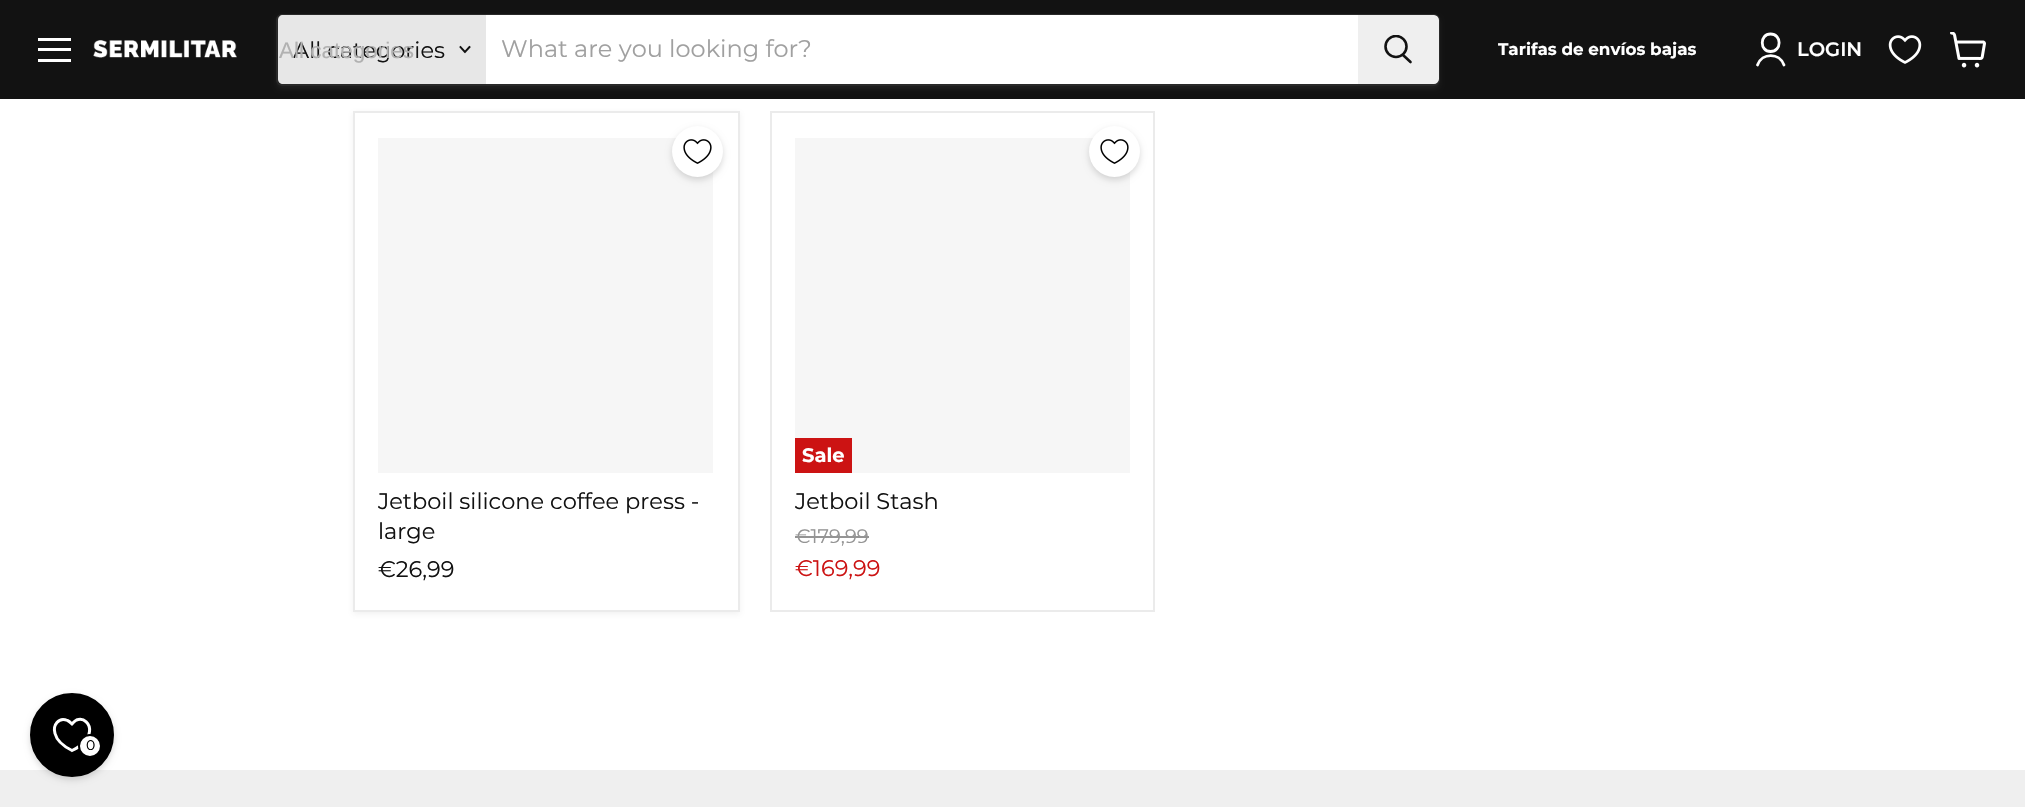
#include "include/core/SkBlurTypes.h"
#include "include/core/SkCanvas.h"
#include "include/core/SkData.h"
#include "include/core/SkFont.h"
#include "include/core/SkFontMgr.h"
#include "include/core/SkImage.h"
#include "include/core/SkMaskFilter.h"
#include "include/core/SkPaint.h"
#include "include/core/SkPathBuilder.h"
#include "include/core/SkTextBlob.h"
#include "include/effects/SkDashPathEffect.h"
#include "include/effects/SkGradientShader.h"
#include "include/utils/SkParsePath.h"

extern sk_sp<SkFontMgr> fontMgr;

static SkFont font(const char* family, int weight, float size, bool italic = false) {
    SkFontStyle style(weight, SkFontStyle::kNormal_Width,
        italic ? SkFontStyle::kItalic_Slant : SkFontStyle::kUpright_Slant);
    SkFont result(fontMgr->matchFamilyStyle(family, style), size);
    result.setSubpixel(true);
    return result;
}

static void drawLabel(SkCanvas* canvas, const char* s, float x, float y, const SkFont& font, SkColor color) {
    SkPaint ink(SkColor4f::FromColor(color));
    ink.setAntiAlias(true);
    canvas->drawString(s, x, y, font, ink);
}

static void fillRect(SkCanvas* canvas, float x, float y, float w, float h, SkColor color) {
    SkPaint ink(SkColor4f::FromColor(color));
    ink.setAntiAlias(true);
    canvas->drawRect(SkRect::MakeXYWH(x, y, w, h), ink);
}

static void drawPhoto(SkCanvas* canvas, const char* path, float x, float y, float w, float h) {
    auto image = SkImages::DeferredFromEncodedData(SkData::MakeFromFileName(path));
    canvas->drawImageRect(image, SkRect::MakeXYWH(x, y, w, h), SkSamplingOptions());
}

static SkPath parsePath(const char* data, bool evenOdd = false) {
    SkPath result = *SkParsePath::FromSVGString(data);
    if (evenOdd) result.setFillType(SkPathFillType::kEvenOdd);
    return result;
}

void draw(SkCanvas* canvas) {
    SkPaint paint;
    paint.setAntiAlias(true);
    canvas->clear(0xFFFFFFFF);
    fillRect(canvas, 0, 0, 2025, 99, 0xFF121212);
    fillRect(canvas, 38, 38, 33, 3, 0xFFFFFFFF);
    fillRect(canvas, 38, 48, 33, 3, 0xFFFFFFFF);
    fillRect(canvas, 38, 59, 33, 3, 0xFFFFFFFF);
    drawPhoto(canvas, "assets/img1.png", 93, 40, 144, 18);
    canvas->save();
    canvas->clipPath(parsePath("M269 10H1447V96H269ZM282 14H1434C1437.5 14 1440 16.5 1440 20V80C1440 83.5 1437.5 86 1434 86H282C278.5 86 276 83.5 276 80V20C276 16.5 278.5 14 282 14Z", true), true);
    paint.setColor(0x1C808080);
    paint.setMaskFilter(SkMaskFilter::MakeBlur(kNormal_SkBlurStyle, 2));
    canvas->drawRoundRect(SkRect::MakeXYWH(276, 17, 1164, 72), 6, 6, paint);
    paint.setMaskFilter(nullptr);
    canvas->restore();
    paint.setStroke(true);
    paint.setStrokeWidth(2);
    paint.setColor(0x33808080);
    canvas->drawRoundRect(SkRect::MakeXYWH(277, 15, 1162, 70), 5, 5, paint);
    paint.setStroke(false);
    paint.setColor(0xFFE7E7E7);
    canvas->drawPath(parsePath("M283 15H486V84H283C280 84 278 82 278 79V20C278 17 280 15 283 15Z"), paint);
    SkFont font1 = font("Montserrat", 400, 22.5f);
    drawLabel(canvas, "All categories", 293, 58, font1, 0xFF121212);
    SkFont font2 = font("Liberation Sans", 400, 22.5f);
    drawLabel(canvas, "All categories", 279, 58, font2, 0xFFB1B1B1);
    paint.setStroke(true);
    paint.setStrokeWidth(1.9f);
    paint.setStrokeCap(SkPaint::kSquare_Cap);
    paint.setColor(0xFF121212);
    canvas->drawPath(parsePath("M465 52L469.5 47M465 52L460.5 47"), paint);
    fillRect(canvas, 486, 15, 872, 69, 0xFFFFFFFF);
    SkFont font3 = font("Montserrat", 400, 24);
    drawLabel(canvas, "What are you looking for?", 501, 57, font3, 0xFFA0A0A0);
    paint.setStroke(false);
    paint.setColor(0xFFEFEFEF);
    canvas->drawPath(parsePath("M1359 16H1434C1436 16 1438 18 1438 20V79C1438 81 1436 83 1434 83H1359Z"), paint);
    paint.setStroke(true);
    paint.setStrokeWidth(2);
    paint.setStrokeCap(SkPaint::kButt_Cap);
    canvas->drawPath(parsePath("M1359 16H1434C1436 16 1438 18 1438 20V79C1438 81 1436 83 1434 83H1359Z"), paint);
    paint.setStrokeWidth(2.6f);
    paint.setStrokeCap(SkPaint::kRound_Cap);
    paint.setColor(0xFF121212);
    canvas->drawPath(parsePath("M1410.5 62L1403 55"), paint);
    canvas->save();
    canvas->clipRect(SkRect::MakeXYWH(1383, 35, 30, 31));
    paint.setStrokeCap(SkPaint::kButt_Cap);
    canvas->drawCircle(1396, 46.5f, 10.5f, paint);
    canvas->restore();
    SkFont font4 = font("Montserrat", 700, 16.75f);
    drawLabel(canvas, "Tarifas de envíos bajas", 1498, 55, font4, 0xFFFFFFFF);
    paint.setStrokeWidth(2.8f);
    paint.setStrokeCap(SkPaint::kRound_Cap);
    paint.setStrokeJoin(SkPaint::kRound_Join);
    paint.setColor(0xFFFFFFFF);
    canvas->drawPath(parsePath("M1770.5 51.5C1782 51.5 1782 34 1770.5 34C1759.5 34 1759.5 51.5 1770.5 51.5ZM1784 65C1779.5 52.5 1762 52.5 1757.5 65"), paint);
    SkFont font5 = font("Montserrat", 600, 19.5f);
    drawLabel(canvas, "LOGIN", 1797, 56, font5, 0xFFFFFFFF);
    drawPhoto(canvas, "assets/img2.png", 1888, 35, 34, 29);
    drawPhoto(canvas, "assets/img3.png", 1950, 32, 36, 36);
    paint.setStroke(false);
    paint.setColor(0x1C808080);
    paint.setMaskFilter(SkMaskFilter::MakeBlur(kNormal_SkBlurStyle, 3));
    canvas->drawRect(SkRect::MakeXYWH(353, 113, 387, 501), paint);
    paint.setMaskFilter(nullptr);
    paint.setColor(0xFFFFFFFF);
    canvas->drawRect(SkRect::MakeXYWH(354, 112, 385, 499), paint);
    paint.setStroke(true);
    paint.setStrokeWidth(2);
    paint.setStrokeCap(SkPaint::kButt_Cap);
    paint.setStrokeJoin(SkPaint::kMiter_Join);
    paint.setColor(0xFFEBEBEB);
    canvas->drawRect(SkRect::MakeXYWH(354, 112, 385, 499), paint);
    fillRect(canvas, 378, 138, 335, 335, 0xFFF6F6F6);
    paint.setStroke(false);
    paint.setColor(0x26000000);
    paint.setMaskFilter(SkMaskFilter::MakeBlur(kNormal_SkBlurStyle, 3));
    canvas->drawRoundRect(SkRect::MakeXYWH(672, 129, 51, 51), 25.5f, 25.5f, paint);
    paint.setMaskFilter(nullptr);
    paint.setColor(0xFFFFFFFF);
    canvas->drawCircle(697.5f, 151.5f, 25.5f, paint);
    drawPhoto(canvas, "assets/img4.png", 683, 139, 29, 25);
    drawLabel(canvas, "Jetboil silicone coffee press -", 378, 509, font1, 0xFF121212);
    drawLabel(canvas, "large", 378, 539, font1, 0xFF121212);
    drawLabel(canvas, "€26,99", 378, 577, font1, 0xFF121212);
    paint.setStroke(true);
    paint.setColor(0xFFEBEBEB);
    canvas->drawRect(SkRect::MakeXYWH(771, 112, 383, 499), paint);
    fillRect(canvas, 795, 138, 335, 335, 0xFFF6F6F6);
    paint.setStroke(false);
    paint.setColor(0x26000000);
    paint.setMaskFilter(SkMaskFilter::MakeBlur(kNormal_SkBlurStyle, 3));
    canvas->drawRoundRect(SkRect::MakeXYWH(1089, 129, 51, 51), 25.5f, 25.5f, paint);
    paint.setMaskFilter(nullptr);
    paint.setColor(0xFFFFFFFF);
    canvas->drawCircle(1114.5f, 151.5f, 25.5f, paint);
    drawPhoto(canvas, "assets/img4.png", 1100, 139, 29, 25);
    fillRect(canvas, 795, 438, 57, 35, 0xFFCC1313);
    SkFont font6 = font("Montserrat", 700, 19.5f);
    drawLabel(canvas, "Sale", 802, 462, font6, 0xFFFFFFFF);
    drawLabel(canvas, "Jetboil Stash", 795, 509, font1, 0xFF121212);
    SkFont font7 = font("Montserrat", 400, 19.5f);
    drawLabel(canvas, "€179,99", 795, 543, font7, 0xFF949494);
    fillRect(canvas, 795, 536, 74, 2, 0xFF949494);
    drawLabel(canvas, "€169,99", 795, 576, font1, 0xFFCC1313);
    fillRect(canvas, 0, 770, 2025, 37, 0xFFEFEFEF);
    paint.setColor(0x26000000);
    paint.setMaskFilter(SkMaskFilter::MakeBlur(kNormal_SkBlurStyle, 3));
    canvas->drawRoundRect(SkRect::MakeXYWH(30, 696, 84, 84), 42, 42, paint);
    paint.setMaskFilter(nullptr);
    paint.setColor(0xFF000000);
    canvas->drawCircle(72, 735, 40.5f, paint);
    paint.setStroke(true);
    paint.setStrokeWidth(3);
    canvas->drawCircle(72, 735, 40.5f, paint);
    paint.setColor(0xFFFFFFFF);
    canvas->drawPath(parsePath("M72 750.5C65 747 57 741.5 55 733.5C52.5 725.5 58.5 716.5 67.5 720.5C69 721 70.5 722.5 72 724C73.5 722.5 74.5 721 76.5 720C84 717 90.5 724 89.5 731.5C88.5 740.5 79.5 747 72 750.5Z"), paint);
    paint.setStroke(false);
    canvas->drawCircle(90, 746, 11, paint);
    paint.setStroke(true);
    paint.setStrokeWidth(2);
    paint.setColor(0xFF000000);
    canvas->drawCircle(90, 746, 11, paint);
    SkFont font8 = font("Montserrat", 400, 14);
    drawLabel(canvas, "0", 86, 750, font8, 0xFF000000);
}
